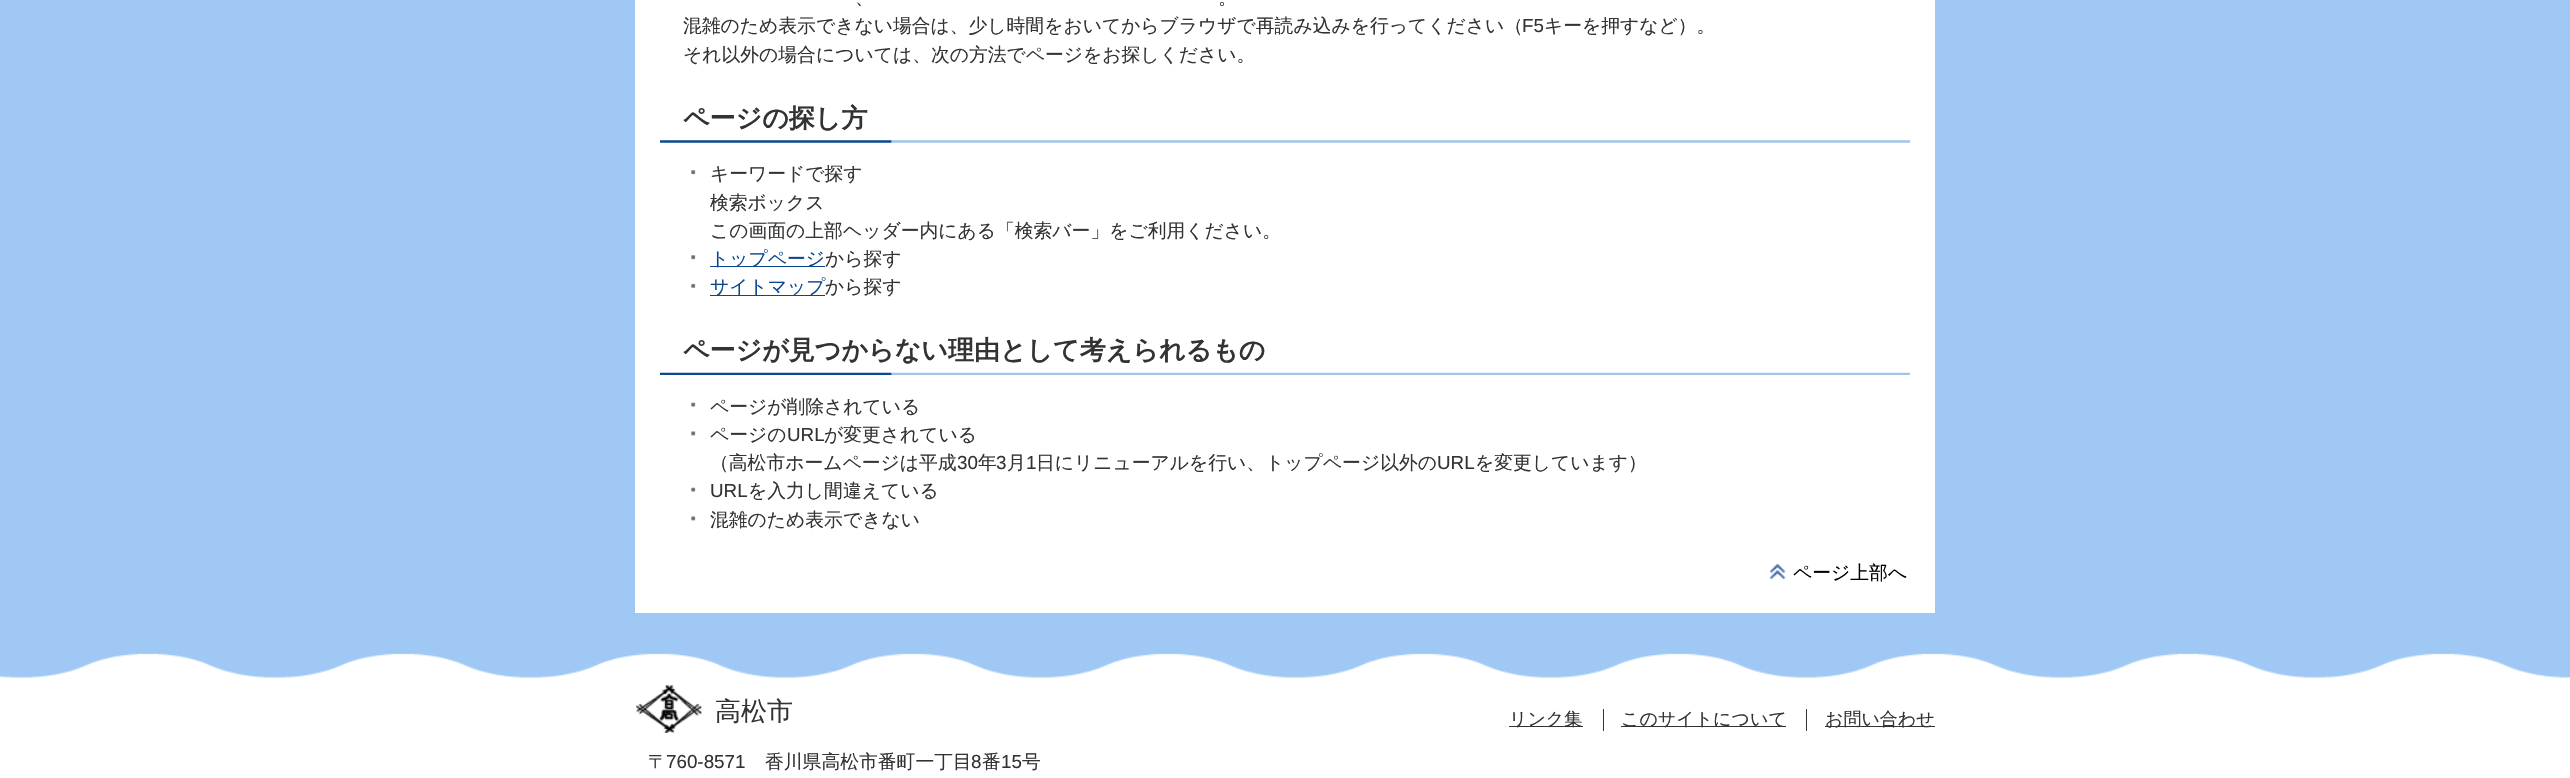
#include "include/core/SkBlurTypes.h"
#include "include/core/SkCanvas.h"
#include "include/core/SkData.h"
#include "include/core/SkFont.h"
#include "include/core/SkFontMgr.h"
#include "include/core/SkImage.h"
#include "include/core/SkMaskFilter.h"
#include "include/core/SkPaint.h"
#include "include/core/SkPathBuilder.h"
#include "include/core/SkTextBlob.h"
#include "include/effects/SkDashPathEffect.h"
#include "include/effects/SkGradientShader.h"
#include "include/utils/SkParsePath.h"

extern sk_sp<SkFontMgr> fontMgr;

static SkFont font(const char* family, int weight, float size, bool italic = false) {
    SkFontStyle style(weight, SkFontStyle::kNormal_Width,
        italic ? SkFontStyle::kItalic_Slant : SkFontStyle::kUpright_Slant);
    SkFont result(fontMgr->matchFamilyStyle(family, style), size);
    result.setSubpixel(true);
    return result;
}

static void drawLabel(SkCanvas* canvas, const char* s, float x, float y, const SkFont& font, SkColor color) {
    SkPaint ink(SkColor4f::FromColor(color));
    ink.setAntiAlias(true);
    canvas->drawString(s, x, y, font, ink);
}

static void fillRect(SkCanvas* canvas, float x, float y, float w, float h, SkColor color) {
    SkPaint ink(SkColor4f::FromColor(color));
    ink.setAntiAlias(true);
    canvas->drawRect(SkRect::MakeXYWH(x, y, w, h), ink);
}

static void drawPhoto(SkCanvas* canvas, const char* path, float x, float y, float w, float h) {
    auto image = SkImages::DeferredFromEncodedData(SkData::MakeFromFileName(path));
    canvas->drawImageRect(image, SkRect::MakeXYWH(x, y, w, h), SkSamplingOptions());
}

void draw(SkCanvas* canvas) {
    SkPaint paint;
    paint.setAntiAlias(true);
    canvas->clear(0xFF9FC9F4);
    fillRect(canvas, 635, 0, 1300, 613, 0xFFFFFFFF);
    SkFont font1 = font("WenQuanYi Zen Hei", 500, 18.8f);
    drawLabel(canvas, "、", 855, 4, font1, 0xFF333333);
    drawLabel(canvas, "。", 1218, 4, font1, 0xFF333333);
    drawLabel(canvas, "混雑のため表示できない場合は、少し時間をおいてからブラウザで再読み込みを行ってください（", 683, 32, font1, 0xFF333333);
    SkFont font2 = font("Liberation Sans", 400, 18.8f);
    drawLabel(canvas, "F5", 1522, 32, font2, 0xFF333333);
    drawLabel(canvas, "キーを押すなど）。", 1544, 32, font1, 0xFF333333);
    drawLabel(canvas, "それ以外の場合については、次の方法でページをお探しください。", 683, 61, font1, 0xFF333333);
    drawPhoto(canvas, "assets/img1.png", 660, 140, 1250, 3);
    SkFont font3 = font("WenQuanYi Zen Hei", 700, 26);
    drawLabel(canvas, "ページの探し方", 683, 127, font3, 0xFF333333);
    drawPhoto(canvas, "assets/img2.png", 691, 170, 5, 5);
    drawLabel(canvas, "キーワードで探す", 710, 180, font1, 0xFF333333);
    drawLabel(canvas, "検索ボックス", 710, 209, font1, 0xFF333333);
    drawLabel(canvas, "この画面の上部ヘッダー内にある「検索バー」をご利用ください。", 710, 237, font1, 0xFF333333);
    drawPhoto(canvas, "assets/img2.png", 691, 255, 5, 5);
    fillRect(canvas, 710, 266, 115, 1, 0xFF0A468C);
    drawLabel(canvas, "トップページ", 710, 265, font1, 0xFF0A468C);
    drawLabel(canvas, "から探す", 825, 265, font1, 0xFF333333);
    drawPhoto(canvas, "assets/img3.png", 691, 283, 5, 5);
    fillRect(canvas, 710, 295, 115, 1, 0xFF0A468C);
    drawLabel(canvas, "サイトマップ", 710, 293, font1, 0xFF0A468C);
    drawLabel(canvas, "から探す", 825, 293, font1, 0xFF333333);
    drawPhoto(canvas, "assets/img4.png", 660, 372, 1250, 3);
    drawLabel(canvas, "ページが見つからない理由として考えられるもの", 683, 359, font3, 0xFF333333);
    drawPhoto(canvas, "assets/img5.png", 691, 402, 5, 5);
    drawLabel(canvas, "ページが削除されている", 710, 413, font1, 0xFF333333);
    drawPhoto(canvas, "assets/img6.png", 691, 431, 5, 5);
    drawLabel(canvas, "ページの", 710, 441, font1, 0xFF333333);
    drawLabel(canvas, "URL", 787, 441, font2, 0xFF333333);
    drawLabel(canvas, "が変更されている", 824, 441, font1, 0xFF333333);
    drawLabel(canvas, "（高松市ホームページは平成", 710, 469, font1, 0xFF333333);
    drawLabel(canvas, "30", 957, 469, font2, 0xFF333333);
    drawLabel(canvas, "年", 978, 469, font1, 0xFF333333);
    drawLabel(canvas, "3", 996, 469, font2, 0xFF333333);
    drawLabel(canvas, "月", 1007, 469, font1, 0xFF333333);
    drawLabel(canvas, "1", 1026, 469, font2, 0xFF333333);
    drawLabel(canvas, "日にリニューアルを行い、トップページ以外の", 1036, 469, font1, 0xFF333333);
    drawLabel(canvas, "URL", 1437, 469, font2, 0xFF333333);
    drawLabel(canvas, "を変更しています）", 1475, 469, font1, 0xFF333333);
    drawPhoto(canvas, "assets/img5.png", 691, 487, 5, 5);
    drawLabel(canvas, "URL", 710, 497, font2, 0xFF333333);
    drawLabel(canvas, "を入力し間違えている", 748, 497, font1, 0xFF333333);
    drawPhoto(canvas, "assets/img6.png", 691, 516, 5, 5);
    drawLabel(canvas, "混雑のため表示できない", 710, 526, font1, 0xFF333333);
    drawPhoto(canvas, "assets/img7.png", 1769, 563, 17, 17);
    drawLabel(canvas, "ページ上部へ", 1793, 579, font1, 0xFF000000);
    drawPhoto(canvas, "assets/img8.png", 0, 653, 2570, 125);
    drawPhoto(canvas, "assets/img9.png", 636, 685, 66, 48);
    SkFont font4 = font("WenQuanYi Zen Hei", 500, 26);
    drawLabel(canvas, "高松市", 715, 720, font4, 0xFF333333);
    drawLabel(canvas, "〒", 648, 768, font1, 0xFF333333);
    drawLabel(canvas, "760-8571", 666, 768, font2, 0xFF333333);
    drawLabel(canvas, "香川県高松市番町一丁目", 765, 768, font1, 0xFF333333);
    drawLabel(canvas, "8", 971, 768, font2, 0xFF333333);
    drawLabel(canvas, "番", 982, 768, font1, 0xFF333333);
    drawLabel(canvas, "15", 1001, 768, font2, 0xFF333333);
    drawLabel(canvas, "号", 1022, 768, font1, 0xFF333333);
    fillRect(canvas, 1603, 709, 1, 22, 0xFF333333);
    fillRect(canvas, 1509, 726, 74, 1, 0xFF333333);
    SkFont font5 = font("WenQuanYi Zen Hei", 500, 18);
    drawLabel(canvas, "リンク集", 1509, 725, font5, 0xFF333333);
    fillRect(canvas, 1806, 709, 1, 22, 0xFF333333);
    fillRect(canvas, 1621, 726, 165, 1, 0xFF333333);
    drawLabel(canvas, "このサイトについて", 1621, 725, font5, 0xFF333333);
    fillRect(canvas, 1825, 726, 110, 1, 0xFF333333);
    drawLabel(canvas, "お問い合わせ", 1825, 725, font5, 0xFF333333);
}
